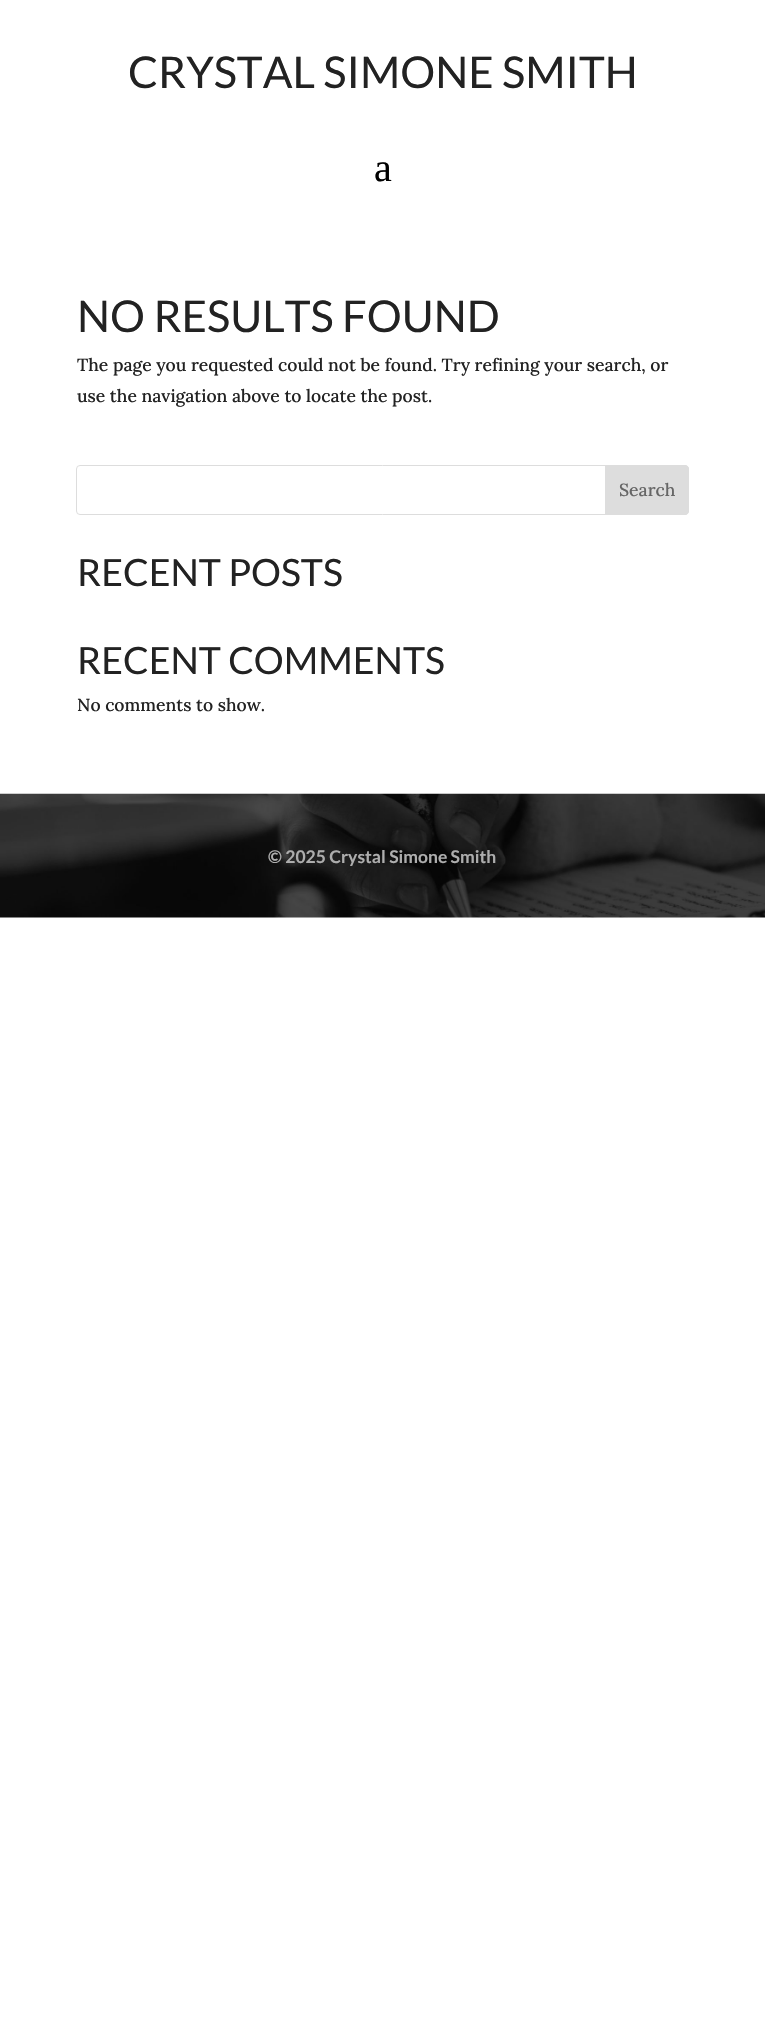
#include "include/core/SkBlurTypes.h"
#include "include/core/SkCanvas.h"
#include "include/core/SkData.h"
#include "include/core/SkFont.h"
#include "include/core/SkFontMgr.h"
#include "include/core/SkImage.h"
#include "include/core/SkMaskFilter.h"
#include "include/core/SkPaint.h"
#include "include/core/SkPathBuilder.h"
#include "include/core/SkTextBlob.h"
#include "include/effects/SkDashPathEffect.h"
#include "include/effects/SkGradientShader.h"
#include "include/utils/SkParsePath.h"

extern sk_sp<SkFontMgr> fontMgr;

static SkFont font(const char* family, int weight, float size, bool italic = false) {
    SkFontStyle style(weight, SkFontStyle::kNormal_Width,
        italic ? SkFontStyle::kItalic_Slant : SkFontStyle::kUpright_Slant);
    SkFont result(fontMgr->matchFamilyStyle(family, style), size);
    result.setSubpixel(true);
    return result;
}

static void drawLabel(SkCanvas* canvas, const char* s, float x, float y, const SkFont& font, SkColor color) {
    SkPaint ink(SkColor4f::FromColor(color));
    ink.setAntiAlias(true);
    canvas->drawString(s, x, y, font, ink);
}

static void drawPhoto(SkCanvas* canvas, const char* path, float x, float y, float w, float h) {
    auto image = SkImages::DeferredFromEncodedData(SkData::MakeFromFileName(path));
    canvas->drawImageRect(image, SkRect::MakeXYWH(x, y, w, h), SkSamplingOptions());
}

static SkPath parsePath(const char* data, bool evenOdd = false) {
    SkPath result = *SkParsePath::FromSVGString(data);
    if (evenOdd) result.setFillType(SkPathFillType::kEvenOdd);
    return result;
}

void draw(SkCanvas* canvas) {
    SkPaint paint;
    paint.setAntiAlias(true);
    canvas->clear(0xFFFFFFFF);
    SkFont font1 = font("Lato", 400, 43.75f);
    drawLabel(canvas, "CRYSTAL SIMONE SMITH", 128, 88, font1, 0xFF222222);
    SkFont font2 = font("Liberation Serif", 400, 40);
    drawLabel(canvas, "a", 374, 181, font2, 0xFF000000);
    drawLabel(canvas, "NO RESULTS FOUND", 77, 332, font1, 0xFF222222);
    SkFont font3 = font("Lora", 500, 17.5f);
    drawLabel(canvas, "The page you requested could not be found. Try refining your search, or", 77, 371, font3, 0xFF222222);
    drawLabel(canvas, "use the navigation above to locate the post.", 77, 402, font3, 0xFF222222);
    paint.setStroke(true);
    paint.setStrokeWidth(1);
    paint.setColor(0xFFDDDDDD);
    canvas->drawRoundRect(SkRect::MakeXYWH(76.5f, 465.5f, 612, 49), 3.5f, 3.5f, paint);
    paint.setStroke(false);
    canvas->drawPath(parsePath("M605.5 465.5H685C687 465.5 688.5 467 688.5 469V511C688.5 513 687 514.5 685 514.5H605.5Z"), paint);
    paint.setStroke(true);
    canvas->drawPath(parsePath("M605.5 465.5H685C687 465.5 688.5 467 688.5 469V511C688.5 513 687 514.5 685 514.5H605.5Z"), paint);
    drawLabel(canvas, "Search", 619, 496, font3, 0xFF666666);
    SkFont font4 = font("Lato", 400, 37.5f);
    drawLabel(canvas, "RECENT POSTS", 77, 586, font4, 0xFF222222);
    drawLabel(canvas, "RECENT COMMENTS", 77, 674, font4, 0xFF222222);
    drawLabel(canvas, "No comments to show.", 77, 711, font3, 0xFF222222);
    drawPhoto(canvas, "assets/img1.png", 0, 793, 765, 125);
    SkFont font5 = font("Lato", 700, 17.5f);
    drawLabel(canvas, "© 2025 Crystal Simone Smith", 268, 863, font5, 0xFFADADAD);
}
